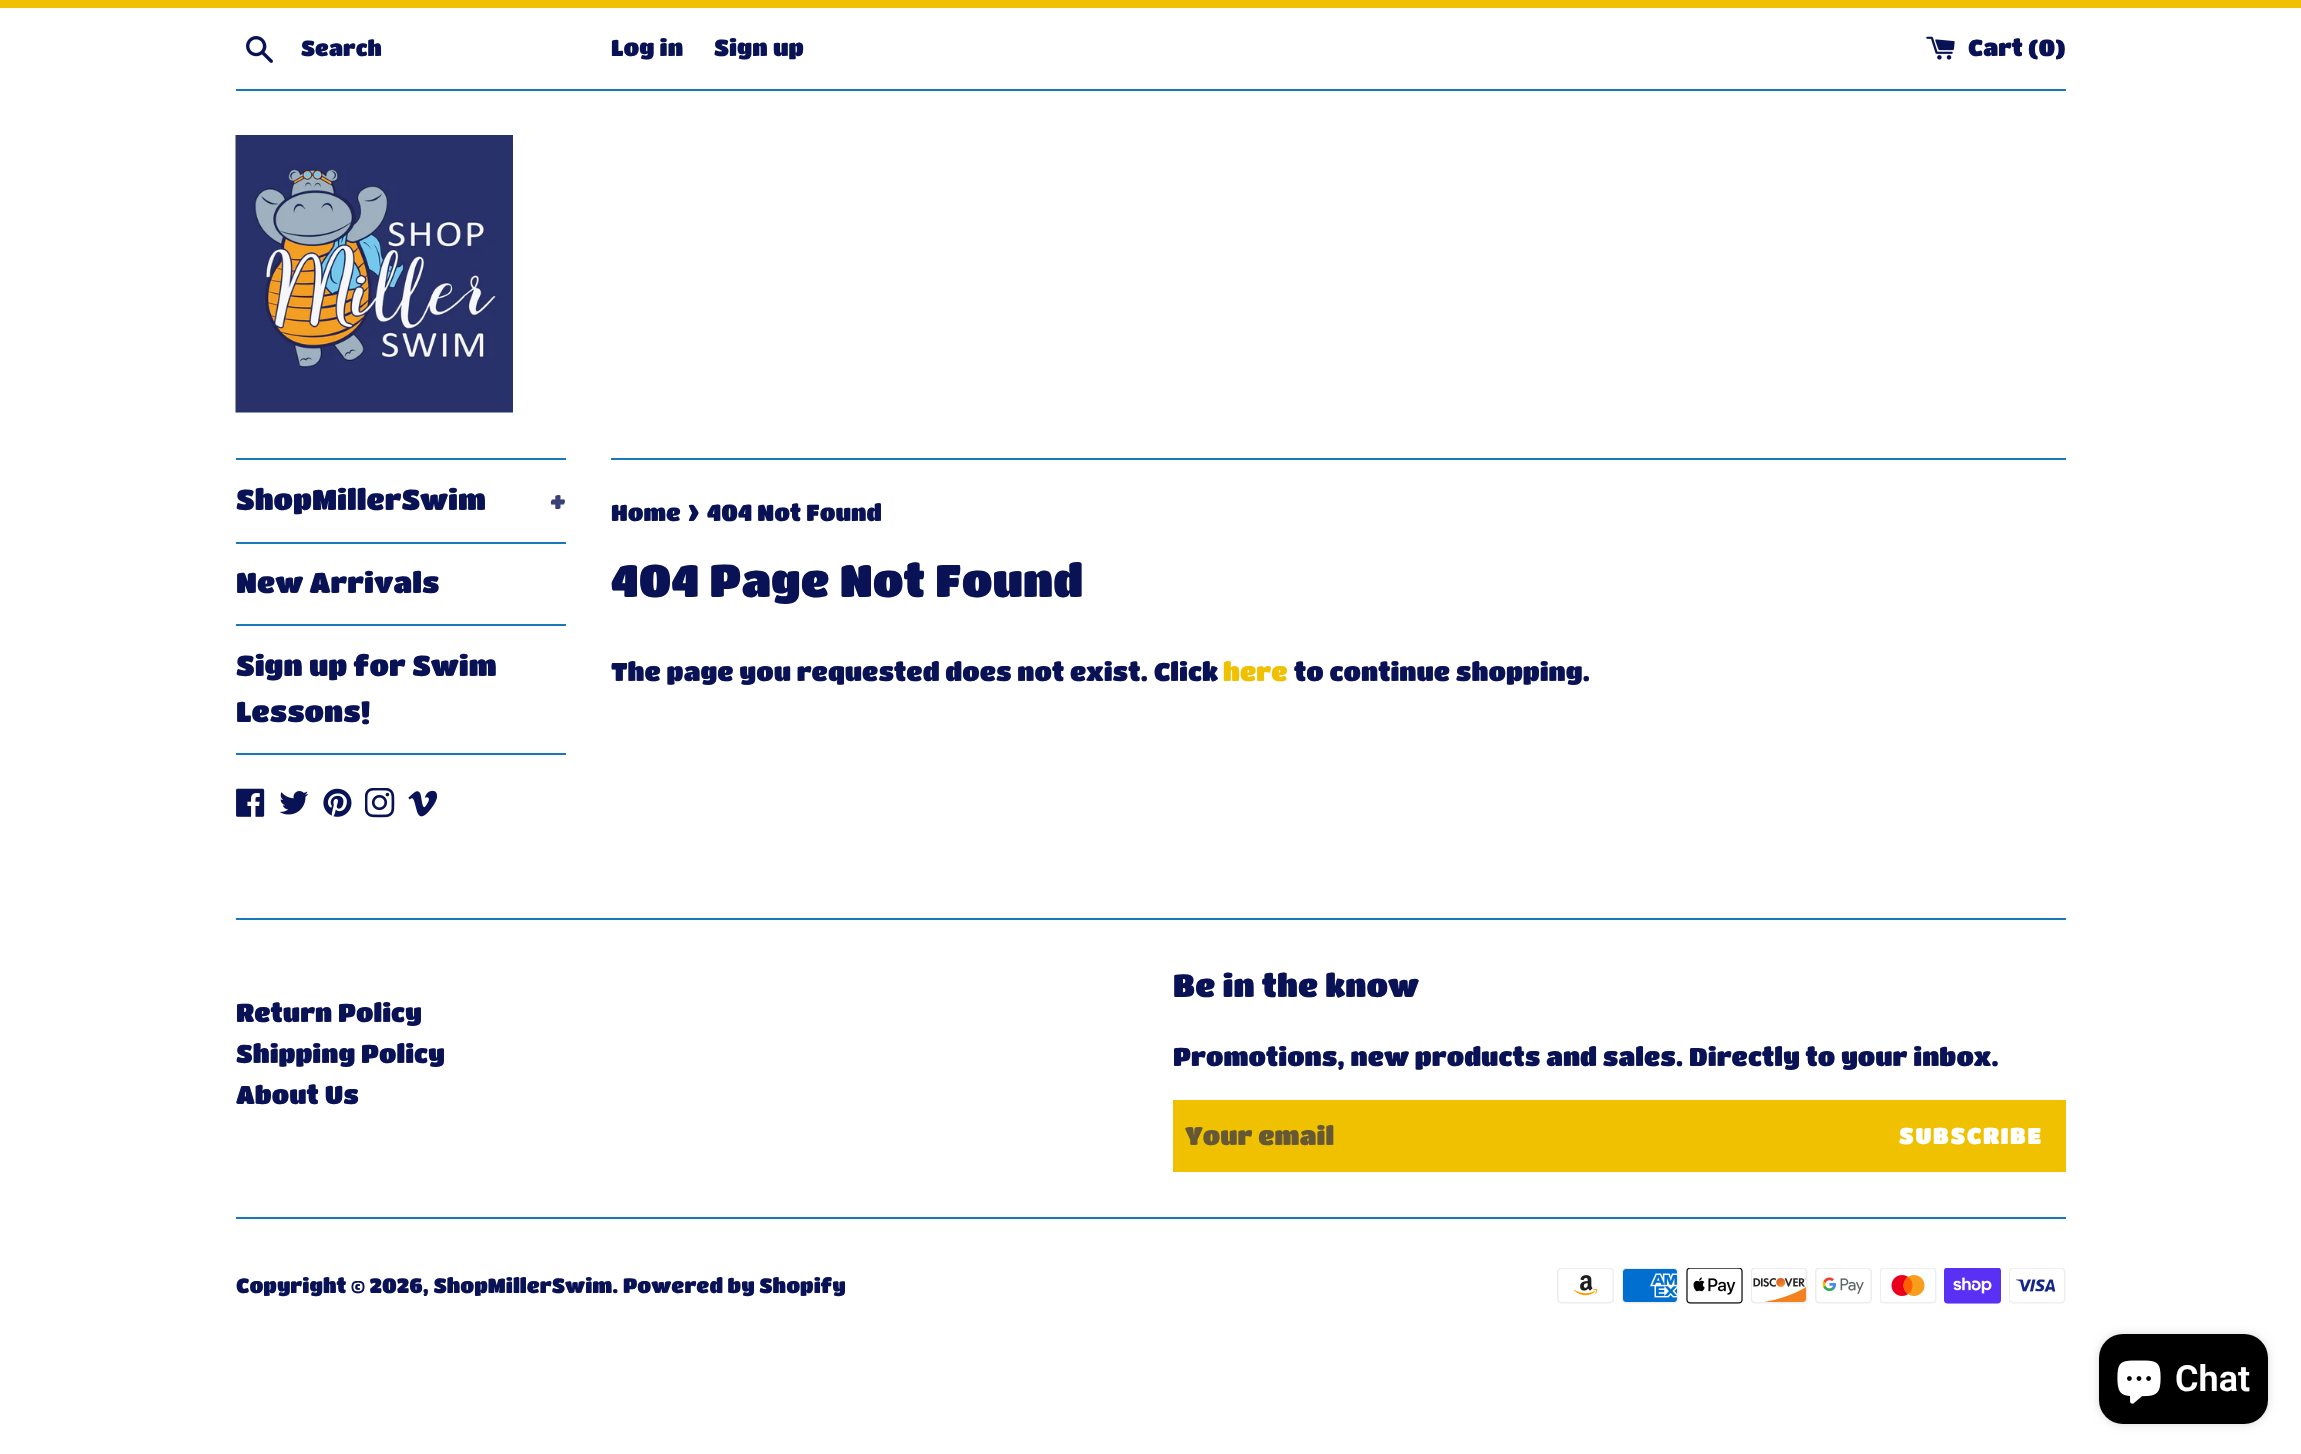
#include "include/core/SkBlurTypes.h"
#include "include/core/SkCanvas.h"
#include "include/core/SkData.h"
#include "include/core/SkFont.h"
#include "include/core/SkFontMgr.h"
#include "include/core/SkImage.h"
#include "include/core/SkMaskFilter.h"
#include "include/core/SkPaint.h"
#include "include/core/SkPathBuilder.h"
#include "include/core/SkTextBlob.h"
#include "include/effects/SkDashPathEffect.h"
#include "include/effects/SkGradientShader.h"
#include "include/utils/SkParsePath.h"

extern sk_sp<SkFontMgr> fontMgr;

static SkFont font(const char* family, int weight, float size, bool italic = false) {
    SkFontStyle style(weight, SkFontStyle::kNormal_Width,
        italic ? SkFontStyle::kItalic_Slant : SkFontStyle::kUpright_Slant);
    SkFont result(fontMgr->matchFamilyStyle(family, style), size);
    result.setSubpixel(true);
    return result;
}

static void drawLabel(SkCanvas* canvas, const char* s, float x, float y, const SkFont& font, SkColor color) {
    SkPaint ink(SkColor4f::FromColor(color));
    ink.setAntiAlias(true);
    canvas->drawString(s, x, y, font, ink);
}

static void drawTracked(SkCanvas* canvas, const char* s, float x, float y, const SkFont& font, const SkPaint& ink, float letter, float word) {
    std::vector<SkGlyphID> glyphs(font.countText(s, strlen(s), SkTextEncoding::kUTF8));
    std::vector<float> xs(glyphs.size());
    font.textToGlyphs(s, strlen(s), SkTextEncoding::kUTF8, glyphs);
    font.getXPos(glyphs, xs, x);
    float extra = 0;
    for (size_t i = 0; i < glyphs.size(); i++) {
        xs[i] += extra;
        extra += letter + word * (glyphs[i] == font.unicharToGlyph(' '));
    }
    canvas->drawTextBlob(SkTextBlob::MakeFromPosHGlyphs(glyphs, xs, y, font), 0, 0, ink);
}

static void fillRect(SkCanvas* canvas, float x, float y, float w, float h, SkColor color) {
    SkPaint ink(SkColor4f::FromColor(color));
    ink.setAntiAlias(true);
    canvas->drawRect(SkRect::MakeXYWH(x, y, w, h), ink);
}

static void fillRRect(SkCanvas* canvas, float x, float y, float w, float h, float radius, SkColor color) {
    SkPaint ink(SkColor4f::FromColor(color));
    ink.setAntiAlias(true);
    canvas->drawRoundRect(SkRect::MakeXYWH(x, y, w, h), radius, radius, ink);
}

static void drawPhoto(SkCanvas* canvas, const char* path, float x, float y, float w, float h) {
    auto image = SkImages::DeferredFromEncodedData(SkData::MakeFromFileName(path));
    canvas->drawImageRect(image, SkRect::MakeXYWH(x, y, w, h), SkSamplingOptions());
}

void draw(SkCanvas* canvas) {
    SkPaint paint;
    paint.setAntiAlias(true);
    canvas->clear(0xFFFFFFFF);
    fillRect(canvas, 0, 0, 2301, 8, 0xFFEFC100);
    drawPhoto(canvas, "assets/img1.png", 246, 36, 27, 27);
    SkFont font1 = font("Titan One", 400, 21.5f);
    drawLabel(canvas, "Search", 301, 56, font1, 0xFF0A1256);
    SkFont font2 = font("Titan One", 400, 23);
    drawLabel(canvas, "Log in", 611, 56, font2, 0xFF0A1256);
    drawLabel(canvas, "Sign up", 714, 56, font2, 0xFF0A1256);
    drawPhoto(canvas, "assets/img2.png", 1926, 36, 29, 24);
    drawLabel(canvas, "Cart (0)", 1968, 56, font2, 0xFF0A1256);
    fillRect(canvas, 236, 89, 1830, 2, 0xFF1878B9);
    drawPhoto(canvas, "assets/img3.png", 235, 135, 278, 278);
    fillRect(canvas, 236, 458, 330, 2, 0xFF1878B9);
    fillRect(canvas, 236, 542, 330, 2, 0xFF1878B9);
    SkFont font3 = font("Titan One", 400, 28.5f);
    drawLabel(canvas, "ShopMillerSwim", 236, 510, font3, 0xFF0A1256);
    drawLabel(canvas, "+", 550, 510, font3, 0xFF3B4178);
    fillRect(canvas, 236, 624, 330, 2, 0xFF1878B9);
    drawLabel(canvas, "New Arrivals", 236, 593, font3, 0xFF0A1256);
    fillRect(canvas, 236, 753, 330, 2, 0xFF1878B9);
    drawLabel(canvas, "Sign up for Swim", 236, 676, font3, 0xFF0A1256);
    drawLabel(canvas, "Lessons!", 236, 722, font3, 0xFF0A1256);
    drawPhoto(canvas, "assets/img4.png", 236, 788, 29, 29);
    drawPhoto(canvas, "assets/img5.png", 279, 791, 30, 24);
    drawPhoto(canvas, "assets/img6.png", 323, 788, 29, 29);
    drawPhoto(canvas, "assets/img7.png", 365, 788, 30, 30);
    drawPhoto(canvas, "assets/img8.png", 408, 790, 30, 27);
    fillRect(canvas, 611, 458, 1455, 2, 0xFF1878B9);
    drawLabel(canvas, "Home", 611, 521, font2, 0xFF0A1256);
    SkFont font4 = font("Titan One", 400, 28);
    drawLabel(canvas, "›", 688, 521, font4, 0xFF0A1256);
    drawLabel(canvas, "404 Not Found", 707, 521, font2, 0xFF0A1256);
    SkFont font5 = font("Titan One", 400, 45);
    drawLabel(canvas, "404 Page Not Found", 611, 597, font5, 0xFF0A1256);
    SkFont font6 = font("Titan One", 400, 25.5f);
    drawLabel(canvas, "The page you requested does not exist. Click", 611, 681, font6, 0xFF0A1256);
    drawLabel(canvas, "here", 1223, 681, font6, 0xFFEFC100);
    drawLabel(canvas, "to continue shopping.", 1294, 681, font6, 0xFF0A1256);
    fillRect(canvas, 236, 918, 1830, 2, 0xFF1878B9);
    drawLabel(canvas, "Return Policy", 236, 1022, font6, 0xFF0A1256);
    drawLabel(canvas, "Shipping Policy", 236, 1063, font6, 0xFF0A1256);
    drawLabel(canvas, "About Us", 236, 1104, font6, 0xFF0A1256);
    SkFont font7 = font("Titan One", 400, 31.5f);
    drawLabel(canvas, "Be in the know", 1173, 997, font7, 0xFF0A1256);
    drawLabel(canvas, "Promotions, new products and sales. Directly to your inbox.", 1173, 1066, font6, 0xFF0A1256);
    fillRect(canvas, 1173, 1100, 893, 72, 0xFFEFC100);
    drawLabel(canvas, "Your email", 1185, 1145, font6, 0xFF665834);
    SkFont font8 = font("Titan One", 400, 22.5f);
    paint.setColor(0xFFFFFFFF);
    drawTracked(canvas, "SUBSCRIBE", 1899, 1144, font8, paint, 1.5f, 0);
    fillRect(canvas, 236, 1217, 1830, 2, 0xFF1878B9);
    SkFont font9 = font("Titan One", 400, 20.4f);
    drawLabel(canvas, "Copyright © 2026, ShopMillerSwim. Powered by Shopify", 236, 1293, font9, 0xFF0A1256);
    drawPhoto(canvas, "assets/img9.png", 1557, 1268, 57, 36);
    drawPhoto(canvas, "assets/img10.png", 1622, 1268, 57, 36);
    drawPhoto(canvas, "assets/img11.png", 1686, 1268, 57, 36);
    drawPhoto(canvas, "assets/img12.png", 1751, 1268, 57, 36);
    drawPhoto(canvas, "assets/img13.png", 1815, 1268, 57, 36);
    drawPhoto(canvas, "assets/img14.png", 1880, 1268, 57, 36);
    drawPhoto(canvas, "assets/img15.png", 1944, 1268, 57, 36);
    drawPhoto(canvas, "assets/img16.png", 2009, 1268, 57, 36);
    paint.setColor(0x26000000);
    paint.setMaskFilter(SkMaskFilter::MakeBlur(kNormal_SkBlurStyle, 4));
    canvas->drawRoundRect(SkRect::MakeXYWH(2099, 1334, 169, 90), 24, 24, paint);
    paint.setMaskFilter(nullptr);
    fillRRect(canvas, 2099, 1334, 169, 90, 24, 0xFF000000);
    drawPhoto(canvas, "assets/img17.png", 2117, 1360, 44, 44);
    SkFont font10 = font("Roboto", 600, 36);
    drawLabel(canvas, "Chat", 2175, 1391, font10, 0xFFFFFFFF);
}
